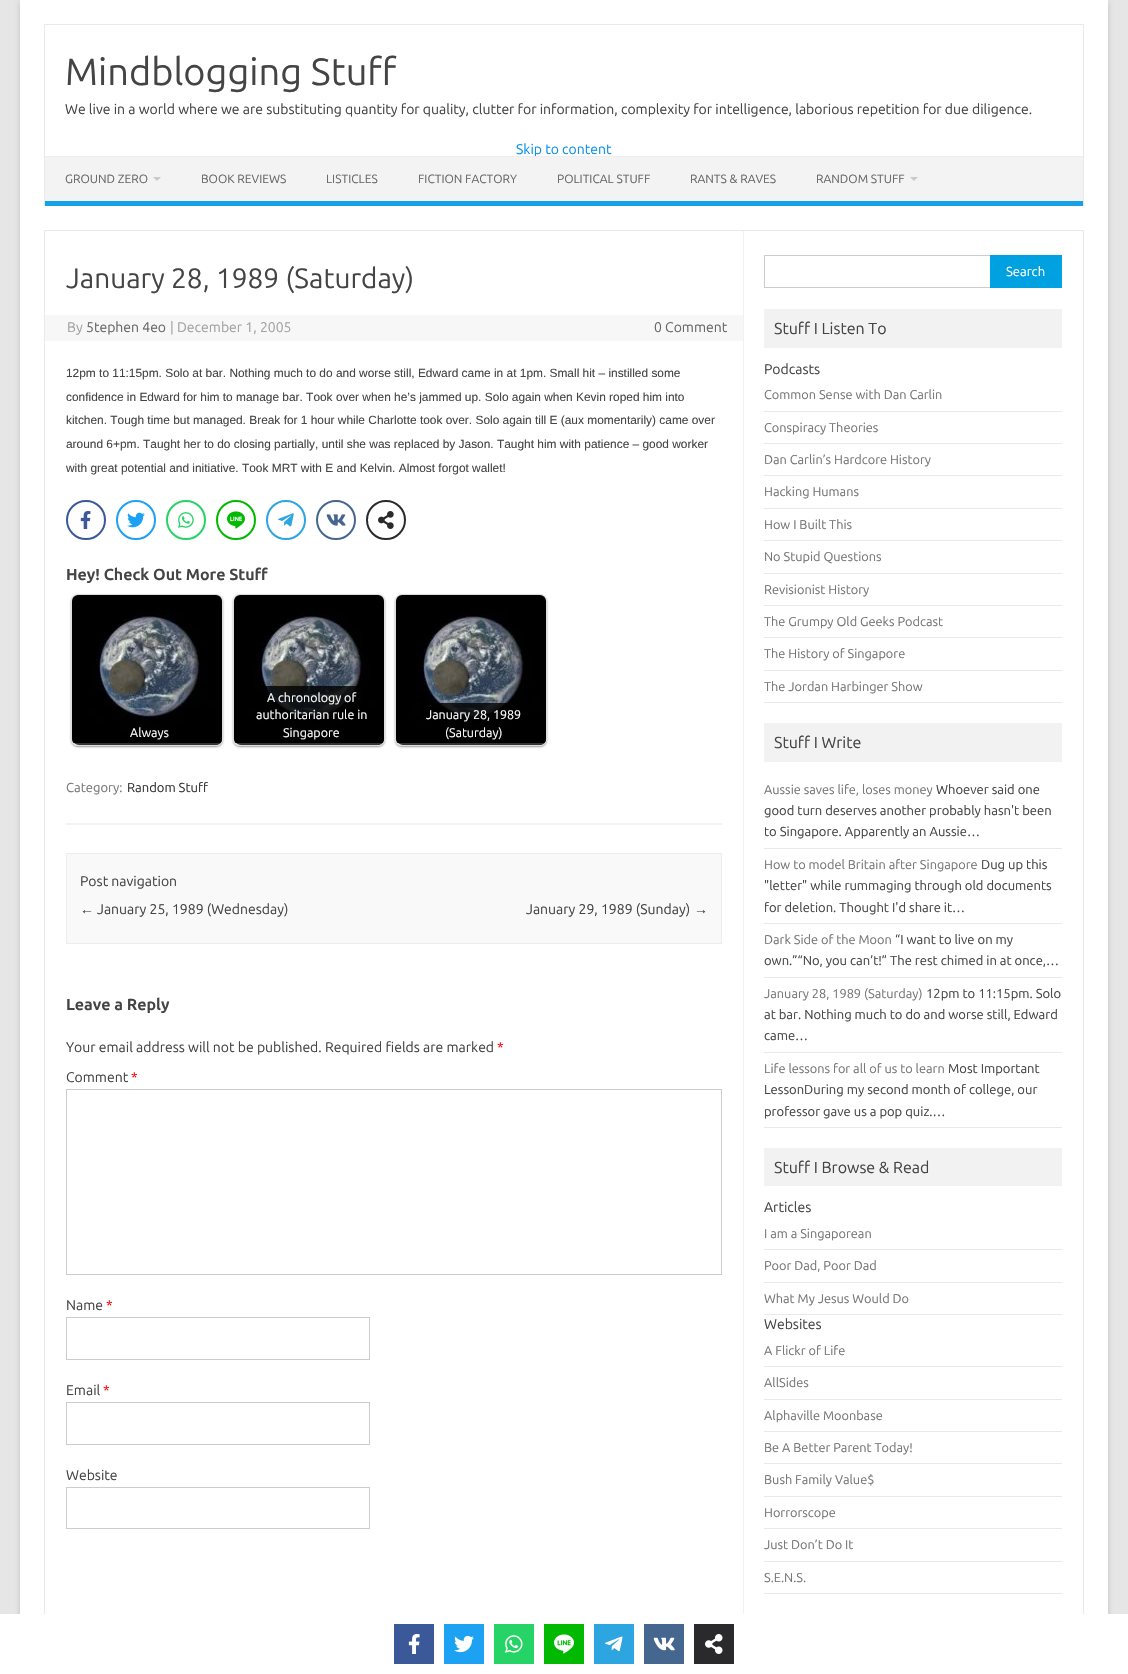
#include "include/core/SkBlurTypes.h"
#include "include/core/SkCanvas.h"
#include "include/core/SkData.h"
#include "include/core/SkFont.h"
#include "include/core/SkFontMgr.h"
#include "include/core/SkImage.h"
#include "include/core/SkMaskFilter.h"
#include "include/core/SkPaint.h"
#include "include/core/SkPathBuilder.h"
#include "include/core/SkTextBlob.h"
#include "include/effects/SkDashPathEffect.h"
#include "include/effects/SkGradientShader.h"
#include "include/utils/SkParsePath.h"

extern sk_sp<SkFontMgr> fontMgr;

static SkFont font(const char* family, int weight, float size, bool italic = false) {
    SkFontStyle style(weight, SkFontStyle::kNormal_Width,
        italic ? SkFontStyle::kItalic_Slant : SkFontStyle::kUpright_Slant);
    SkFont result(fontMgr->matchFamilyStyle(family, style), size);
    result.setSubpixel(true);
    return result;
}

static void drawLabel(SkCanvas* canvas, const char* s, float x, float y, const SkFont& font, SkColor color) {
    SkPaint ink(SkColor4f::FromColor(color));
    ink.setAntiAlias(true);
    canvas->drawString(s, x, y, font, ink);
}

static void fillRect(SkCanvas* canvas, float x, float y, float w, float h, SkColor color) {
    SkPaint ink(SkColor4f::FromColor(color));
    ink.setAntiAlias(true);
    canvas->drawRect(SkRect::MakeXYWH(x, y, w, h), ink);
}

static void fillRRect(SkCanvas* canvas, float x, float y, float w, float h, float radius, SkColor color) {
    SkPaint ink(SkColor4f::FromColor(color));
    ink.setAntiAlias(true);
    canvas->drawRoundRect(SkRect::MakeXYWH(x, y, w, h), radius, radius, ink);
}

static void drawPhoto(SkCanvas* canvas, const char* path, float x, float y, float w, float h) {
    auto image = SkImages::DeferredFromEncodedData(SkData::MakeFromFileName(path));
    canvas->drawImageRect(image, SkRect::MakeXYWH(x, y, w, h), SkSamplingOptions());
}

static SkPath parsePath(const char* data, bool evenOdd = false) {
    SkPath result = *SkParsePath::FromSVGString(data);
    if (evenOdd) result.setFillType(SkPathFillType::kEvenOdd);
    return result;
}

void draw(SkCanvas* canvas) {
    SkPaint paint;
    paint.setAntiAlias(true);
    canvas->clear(0xFFE6E6E6);
    paint.setColor(0x4D646464);
    paint.setMaskFilter(SkMaskFilter::MakeBlur(kNormal_SkBlurStyle, 3));
    canvas->drawRect(SkRect::MakeXYWH(20, 2, 1088, 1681), paint);
    paint.setMaskFilter(nullptr);
    fillRect(canvas, 20, 0, 1088, 1614, 0xFFFFFFFF);
    fillRect(canvas, 44, 24, 1040, 1, 0xFFE9E9E9);
    fillRect(canvas, 1083, 24, 1, 182, 0xFFE9E9E9);
    fillRect(canvas, 44, 24, 1, 182, 0xFFE9E9E9);
    SkFont font1 = font("Ubuntu", 400, 38);
    drawLabel(canvas, "Mindblogging Stuff", 65, 85, font1, 0xFF444444);
    SkFont font2 = font("Ubuntu", 400, 14);
    drawLabel(canvas, "We live in a world where we are substituting quantity for quality, clutter for information, complexity for intelligence, laborious repetition for due diligence.", 65, 114, font2, 0xFF444444);
    drawLabel(canvas, "Skip to content", 516, 154, font2, 0xFF0B91EA);
    fillRect(canvas, 45, 157, 1038, 44, 0xFFF3F3F3);
    fillRect(canvas, 45, 156, 1038, 1, 0xFFEDEDED);
    fillRect(canvas, 45, 201, 1038, 5, 0xFF16A1E7);
    SkFont font3 = font("Ubuntu", 400, 12);
    drawLabel(canvas, "GROUND ZERO", 65, 183, font3, 0xFF666666);
    paint.setColor(0xFFC9C9C9);
    canvas->drawPath(parsePath("M153 177H161L157 181Z"), paint);
    drawLabel(canvas, "BOOK REVIEWS", 201, 183, font3, 0xFF666666);
    drawLabel(canvas, "LISTICLES", 326, 183, font3, 0xFF666666);
    drawLabel(canvas, "FICTION FACTORY", 418, 183, font3, 0xFF666666);
    drawLabel(canvas, "POLITICAL STUFF", 557, 183, font3, 0xFF666666);
    drawLabel(canvas, "RANTS & RAVES", 690, 183, font3, 0xFF666666);
    drawLabel(canvas, "RANDOM STUFF", 816, 183, font3, 0xFF666666);
    canvas->drawPath(parsePath("M910 177H918L914 181Z"), paint);
    paint.setStroke(true);
    paint.setStrokeWidth(1);
    paint.setColor(0xFFE9E9E9);
    canvas->drawRect(SkRect::MakeXYWH(44.5f, 230.5f, 1039, 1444), paint);
    fillRect(canvas, 743, 231, 1, 1383, 0xFFF1F1F1);
    fillRect(canvas, 66, 823, 656, 2, 0xFFF3F3F3);
    SkFont font4 = font("Ubuntu", 400, 28);
    drawLabel(canvas, "January 28, 1989 (Saturday)", 66, 288, font4, 0xFF444444);
    fillRect(canvas, 45, 315, 698, 26, 0xFFF7F7F7);
    drawLabel(canvas, "By", 67, 332, font2, 0xFFA2A2A2);
    drawLabel(canvas, "5tephen 4eo", 86, 332, font2, 0xFF666666);
    drawLabel(canvas, "| December 1, 2005", 170, 332, font2, 0xFFA2A2A2);
    drawLabel(canvas, "0 Comment", 654, 332, font2, 0xFF666666);
    SkFont font5 = font("Liberation Sans", 400, 11.9f);
    drawLabel(canvas, "12pm to 11:15pm. Solo at bar. Nothing much to do and worse still, Edward came in at 1pm. Small hit – instilled some", 66, 377, font5, 0xFF444444);
    drawLabel(canvas, "confidence in Edward for him to manage bar. Took over when he’s jammed up. Solo again when Kevin roped him into", 66, 401, font5, 0xFF444444);
    drawLabel(canvas, "kitchen. Tough time but managed. Break for 1 hour while Charlotte took over. Solo again till E (aux momentarily) came over", 66, 424, font5, 0xFF444444);
    drawLabel(canvas, "around 6+pm. Taught her to do closing partially, until she was replaced by Jason. Taught him with patience – good worker", 66, 448, font5, 0xFF444444);
    drawLabel(canvas, "with great potential and initiative. Took MRT with E and Kelvin. Almost forgot wallet!", 66, 472, font5, 0xFF444444);
    paint.setStrokeWidth(2);
    paint.setColor(0xFF3B5998);
    canvas->drawCircle(86, 520, 19, paint);
    drawPhoto(canvas, "assets/img1.png", 80, 511, 11, 18);
    paint.setColor(0xFF1DA1F2);
    canvas->drawCircle(136, 520, 19, paint);
    drawPhoto(canvas, "assets/img2.png", 127, 512, 18, 16);
    paint.setColor(0xFF25D366);
    canvas->drawCircle(186, 520, 19, paint);
    drawPhoto(canvas, "assets/img3.png", 178, 512, 16, 16);
    paint.setColor(0xFF00B900);
    canvas->drawCircle(236, 520, 19, paint);
    drawPhoto(canvas, "assets/img4.png", 227, 511, 18, 18);
    paint.setColor(0xFF2CA5E0);
    canvas->drawCircle(286, 520, 19, paint);
    drawPhoto(canvas, "assets/img5.png", 278, 513, 16, 14);
    paint.setColor(0xFF45668E);
    canvas->drawCircle(336, 520, 19, paint);
    drawPhoto(canvas, "assets/img6.png", 326, 514, 20, 12);
    paint.setColor(0xFF2A2A2C);
    canvas->drawCircle(386, 520, 19, paint);
    drawPhoto(canvas, "assets/img7.png", 378, 511, 16, 18);
    SkFont font6 = font("Ubuntu", 700, 16);
    drawLabel(canvas, "Hey! Check Out More Stuff", 66, 580, font6, 0xFF444444);
    canvas->save();
    canvas->clipPath(parsePath("M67 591H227V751H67ZM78 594H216C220 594 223 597 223 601V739C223 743 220 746 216 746H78C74 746 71 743 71 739V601C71 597 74 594 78 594Z", true), true);
    paint.setStroke(false);
    paint.setColor(0x66000000);
    paint.setMaskFilter(SkMaskFilter::MakeBlur(kNormal_SkBlurStyle, 1));
    canvas->drawRoundRect(SkRect::MakeXYWH(71, 595, 152, 152), 7, 7, paint);
    paint.setMaskFilter(nullptr);
    canvas->restore();
    paint.setStroke(true);
    paint.setStrokeWidth(1);
    paint.setColor(0xFFDDDDDD);
    canvas->drawRoundRect(SkRect::MakeXYWH(71.5f, 594.5f, 151, 151), 6.5f, 6.5f, paint);
    drawPhoto(canvas, "assets/img8.png", 72, 595, 150, 148);
    canvas->save();
    canvas->clipPath(parsePath("M78 595H216C219.5 595 222 597.5 222 601V739C222 742.5 219.5 745 216 745H78C74.5 745 72 742.5 72 739V601C72 597.5 74.5 595 78 595Z"), true);
    fillRRect(canvas, 72, 721, 156, 24, 7, 0xCC000000);
    canvas->restore();
    SkFont font7 = font("Ubuntu", 400, 12.5f);
    drawLabel(canvas, "Always", 130, 737, font7, 0xFFFFFFFF);
    canvas->save();
    canvas->clipPath(parsePath("M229 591H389V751H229ZM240 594H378C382 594 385 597 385 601V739C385 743 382 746 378 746H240C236 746 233 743 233 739V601C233 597 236 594 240 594Z", true), true);
    paint.setStroke(false);
    paint.setColor(0x66000000);
    paint.setMaskFilter(SkMaskFilter::MakeBlur(kNormal_SkBlurStyle, 1));
    canvas->drawRoundRect(SkRect::MakeXYWH(233, 595, 152, 152), 7, 7, paint);
    paint.setMaskFilter(nullptr);
    canvas->restore();
    paint.setStroke(true);
    paint.setColor(0xFFDDDDDD);
    canvas->drawRoundRect(SkRect::MakeXYWH(233.5f, 594.5f, 151, 151), 6.5f, 6.5f, paint);
    drawPhoto(canvas, "assets/img8.png", 234, 595, 150, 148);
    canvas->save();
    canvas->clipPath(parsePath("M240 595H378C381.5 595 384 597.5 384 601V739C384 742.5 381.5 745 378 745H240C236.5 745 234 742.5 234 739V601C234 597.5 236.5 595 240 595Z"), true);
    fillRRect(canvas, 234, 686, 156, 59, 7, 0xCC000000);
    canvas->restore();
    drawLabel(canvas, "A chronology of", 267, 702, font7, 0xFFFFFFFF);
    drawLabel(canvas, "authoritarian rule in", 256, 719, font7, 0xFFFFFFFF);
    drawLabel(canvas, "Singapore", 283, 737, font7, 0xFFFFFFFF);
    canvas->save();
    canvas->clipPath(parsePath("M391 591H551V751H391ZM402 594H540C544 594 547 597 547 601V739C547 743 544 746 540 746H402C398 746 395 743 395 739V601C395 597 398 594 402 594Z", true), true);
    paint.setStroke(false);
    paint.setColor(0x66000000);
    paint.setMaskFilter(SkMaskFilter::MakeBlur(kNormal_SkBlurStyle, 1));
    canvas->drawRoundRect(SkRect::MakeXYWH(395, 595, 152, 152), 7, 7, paint);
    paint.setMaskFilter(nullptr);
    canvas->restore();
    paint.setStroke(true);
    paint.setColor(0xFFDDDDDD);
    canvas->drawRoundRect(SkRect::MakeXYWH(395.5f, 594.5f, 151, 151), 6.5f, 6.5f, paint);
    drawPhoto(canvas, "assets/img8.png", 396, 595, 150, 148);
    canvas->save();
    canvas->clipPath(parsePath("M402 595H540C543.5 595 546 597.5 546 601V739C546 742.5 543.5 745 540 745H402C398.5 745 396 742.5 396 739V601C396 597.5 398.5 595 402 595Z"), true);
    fillRRect(canvas, 396, 703, 156, 42, 7, 0xCC000000);
    canvas->restore();
    drawLabel(canvas, "January 28, 1989", 426, 719, font7, 0xFFFFFFFF);
    drawLabel(canvas, "(Saturday)", 445, 737, font7, 0xFFFFFFFF);
    SkFont font8 = font("Ubuntu", 400, 13);
    drawLabel(canvas, "Category:", 66, 792, font8, 0xFF757575);
    drawLabel(canvas, "Random Stuff", 127, 792, font8, 0xFF333333);
    paint.setStroke(false);
    paint.setColor(0xFFF9F9F9);
    canvas->drawRect(SkRect::MakeXYWH(66.5f, 853.5f, 655, 90), paint);
    paint.setStroke(true);
    paint.setColor(0xFFEDEDED);
    canvas->drawRect(SkRect::MakeXYWH(66.5f, 853.5f, 655, 90), paint);
    drawLabel(canvas, "Post navigation", 80, 886, font2, 0xFF444444);
    SkFont font9 = font("Liberation Sans", 400, 14);
    drawLabel(canvas, "←", 80, 914, font9, 0xFF444444);
    drawLabel(canvas, "January 25, 1989 (Wednesday)", 97, 914, font2, 0xFF444444);
    drawLabel(canvas, "January 29, 1989 (Sunday)", 526, 914, font2, 0xFF444444);
    drawLabel(canvas, "→", 694, 914, font9, 0xFF444444);
    drawLabel(canvas, "Leave a Reply", 66, 1010, font6, 0xFF444444);
    drawLabel(canvas, "Your email address will not be published. Required fields are marked", 66, 1052, font2, 0xFF444444);
    drawLabel(canvas, "*", 497, 1052, font2, 0xFFFF0000);
    drawLabel(canvas, "Comment", 66, 1082, font2, 0xFF444444);
    drawLabel(canvas, "*", 131, 1082, font2, 0xFFFF0000);
    paint.setColor(0xFFCCCCCC);
    canvas->drawRect(SkRect::MakeXYWH(66.5f, 1089.5f, 655, 185), paint);
    drawLabel(canvas, "Name", 66, 1310, font2, 0xFF444444);
    drawLabel(canvas, "*", 106, 1310, font2, 0xFFFF0000);
    canvas->drawRect(SkRect::MakeXYWH(66.5f, 1317.5f, 303, 42), paint);
    drawLabel(canvas, "Email", 66, 1395, font2, 0xFF444444);
    drawLabel(canvas, "*", 103, 1395, font2, 0xFFFF0000);
    canvas->drawRect(SkRect::MakeXYWH(66.5f, 1402.5f, 303, 42), paint);
    drawLabel(canvas, "Website", 66, 1480, font2, 0xFF444444);
    canvas->drawRect(SkRect::MakeXYWH(66.5f, 1487.5f, 303, 41), paint);
    canvas->drawRect(SkRect::MakeXYWH(764.5f, 255.5f, 227, 32), paint);
    fillRect(canvas, 990, 255, 72, 33, 0xFF00A1E0);
    drawLabel(canvas, "Search", 1006, 276, font8, 0xFFFFFFFF);
    fillRect(canvas, 764, 309, 298, 39, 0xFFF2F2F2);
    SkFont font10 = font("Ubuntu", 400, 16);
    drawLabel(canvas, "Stuff I Listen To", 774, 334, font10, 0xFF444444);
    drawLabel(canvas, "Podcasts", 764, 374, font2, 0xFF444444);
    fillRect(canvas, 764, 411, 298, 1, 0xFFE9E9E9);
    SkFont font11 = font("Ubuntu", 400, 12.75f);
    drawLabel(canvas, "Common Sense with Dan Carlin", 764, 399, font11, 0xFF757575);
    fillRect(canvas, 764, 443, 298, 1, 0xFFE9E9E9);
    drawLabel(canvas, "Conspiracy Theories", 764, 432, font11, 0xFF757575);
    fillRect(canvas, 764, 475, 298, 1, 0xFFE9E9E9);
    drawLabel(canvas, "Dan Carlin’s Hardcore History", 764, 464, font11, 0xFF757575);
    fillRect(canvas, 764, 508, 298, 1, 0xFFE9E9E9);
    drawLabel(canvas, "Hacking Humans", 764, 496, font11, 0xFF757575);
    fillRect(canvas, 764, 540, 298, 1, 0xFFE9E9E9);
    drawLabel(canvas, "How I Built This", 764, 529, font11, 0xFF757575);
    fillRect(canvas, 764, 573, 298, 1, 0xFFE9E9E9);
    drawLabel(canvas, "No Stupid Questions", 764, 561, font11, 0xFF757575);
    fillRect(canvas, 764, 605, 298, 1, 0xFFE9E9E9);
    drawLabel(canvas, "Revisionist History", 764, 594, font11, 0xFF757575);
    fillRect(canvas, 764, 637, 298, 1, 0xFFE9E9E9);
    drawLabel(canvas, "The Grumpy Old Geeks Podcast", 764, 626, font11, 0xFF757575);
    fillRect(canvas, 764, 670, 298, 1, 0xFFE9E9E9);
    drawLabel(canvas, "The History of Singapore", 764, 658, font11, 0xFF757575);
    fillRect(canvas, 764, 702, 298, 1, 0xFFE9E9E9);
    drawLabel(canvas, "The Jordan Harbinger Show", 764, 691, font11, 0xFF757575);
    fillRect(canvas, 764, 723, 298, 39, 0xFFF2F2F2);
    drawLabel(canvas, "Stuff I Write", 774, 748, font10, 0xFF444444);
    fillRect(canvas, 764, 848, 298, 1, 0xFFE9E9E9);
    drawLabel(canvas, "Aussie saves life, loses money", 764, 794, font11, 0xFF757575);
    drawLabel(canvas, "Whoever said one", 936, 794, font8, 0xFF444444);
    drawLabel(canvas, "good turn deserves another probably hasn't been", 764, 815, font8, 0xFF444444);
    drawLabel(canvas, "to Singapore. Apparently an Aussie…", 764, 836, font8, 0xFF444444);
    fillRect(canvas, 764, 923, 298, 1, 0xFFE9E9E9);
    drawLabel(canvas, "How to model Britain after Singapore", 764, 869, font11, 0xFF757575);
    drawLabel(canvas, "Dug up this", 981, 869, font8, 0xFF444444);
    drawLabel(canvas, "\"letter\" while rummaging through old documents", 764, 890, font8, 0xFF444444);
    drawLabel(canvas, "for deletion. Thought I'd share it…", 764, 912, font8, 0xFF444444);
    fillRect(canvas, 764, 977, 298, 1, 0xFFE9E9E9);
    drawLabel(canvas, "Dark Side of the Moon", 764, 944, font11, 0xFF757575);
    drawLabel(canvas, "“I want to live on my", 895, 944, font8, 0xFF444444);
    drawLabel(canvas, "own.”“No, you can’t!” The rest chimed in at once,…", 764, 965, font8, 0xFF444444);
    fillRect(canvas, 764, 1052, 298, 1, 0xFFE9E9E9);
    drawLabel(canvas, "January 28, 1989 (Saturday)", 764, 998, font11, 0xFF757575);
    drawLabel(canvas, "12pm to 11:15pm. Solo", 926, 998, font8, 0xFF444444);
    drawLabel(canvas, "at bar. Nothing much to do and worse still, Edward", 764, 1019, font8, 0xFF444444);
    drawLabel(canvas, "came…", 764, 1040, font8, 0xFF444444);
    fillRect(canvas, 764, 1127, 298, 1, 0xFFE9E9E9);
    drawLabel(canvas, "Life lessons for all of us to learn", 764, 1073, font11, 0xFF757575);
    drawLabel(canvas, "Most Important", 948, 1073, font8, 0xFF444444);
    drawLabel(canvas, "LessonDuring my second month of college, our", 764, 1094, font8, 0xFF444444);
    drawLabel(canvas, "professor gave us a pop quiz.…", 764, 1116, font8, 0xFF444444);
    fillRect(canvas, 764, 1148, 298, 38, 0xFFF2F2F2);
    drawLabel(canvas, "Stuff I Browse & Read", 774, 1173, font10, 0xFF444444);
    drawLabel(canvas, "Articles", 764, 1212, font2, 0xFF444444);
    fillRect(canvas, 764, 1249, 298, 1, 0xFFE9E9E9);
    drawLabel(canvas, "I am a Singaporean", 764, 1238, font11, 0xFF757575);
    fillRect(canvas, 764, 1282, 298, 1, 0xFFE9E9E9);
    drawLabel(canvas, "Poor Dad, Poor Dad", 764, 1270, font11, 0xFF757575);
    fillRect(canvas, 764, 1314, 298, 1, 0xFFE9E9E9);
    drawLabel(canvas, "What My Jesus Would Do", 764, 1303, font11, 0xFF757575);
    drawLabel(canvas, "Websites", 764, 1329, font2, 0xFF444444);
    fillRect(canvas, 764, 1366, 298, 1, 0xFFE9E9E9);
    drawLabel(canvas, "A Flickr of Life", 764, 1355, font11, 0xFF757575);
    fillRect(canvas, 764, 1399, 298, 1, 0xFFE9E9E9);
    drawLabel(canvas, "AllSides", 764, 1387, font11, 0xFF757575);
    fillRect(canvas, 764, 1431, 298, 1, 0xFFE9E9E9);
    drawLabel(canvas, "Alphaville Moonbase", 764, 1420, font11, 0xFF757575);
    fillRect(canvas, 764, 1463, 298, 1, 0xFFE9E9E9);
    drawLabel(canvas, "Be A Better Parent Today!", 764, 1452, font11, 0xFF757575);
    fillRect(canvas, 764, 1496, 298, 1, 0xFFE9E9E9);
    drawLabel(canvas, "Bush Family Value$", 764, 1484, font11, 0xFF757575);
    fillRect(canvas, 764, 1528, 298, 1, 0xFFE9E9E9);
    drawLabel(canvas, "Horrorscope", 764, 1517, font11, 0xFF757575);
    fillRect(canvas, 764, 1561, 298, 1, 0xFFE9E9E9);
    drawLabel(canvas, "Just Don’t Do It", 764, 1549, font11, 0xFF757575);
    fillRect(canvas, 764, 1593, 298, 1, 0xFFE9E9E9);
    drawLabel(canvas, "S.E.N.S.", 764, 1582, font11, 0xFF757575);
    fillRect(canvas, 0, 1614, 1128, 60, 0xFFFFFFFF);
    fillRect(canvas, 394, 1624, 40, 40, 0xFF3B5998);
    drawPhoto(canvas, "assets/img9.png", 408, 1634, 12, 20);
    fillRect(canvas, 444, 1624, 40, 40, 0xFF1DA1F2);
    drawPhoto(canvas, "assets/img10.png", 454, 1635, 20, 18);
    fillRect(canvas, 494, 1624, 40, 40, 0xFF25D366);
    drawPhoto(canvas, "assets/img11.png", 505, 1635, 18, 18);
    fillRect(canvas, 544, 1624, 40, 40, 0xFF00B900);
    drawPhoto(canvas, "assets/img12.png", 554, 1634, 20, 20);
    fillRect(canvas, 594, 1624, 40, 40, 0xFF2CA5E0);
    drawPhoto(canvas, "assets/img13.png", 605, 1636, 18, 16);
    fillRect(canvas, 644, 1624, 40, 40, 0xFF45668E);
    drawPhoto(canvas, "assets/img14.png", 653, 1637, 22, 14);
    fillRect(canvas, 694, 1624, 40, 40, 0xFF2A2A2C);
    drawPhoto(canvas, "assets/img15.png", 705, 1634, 18, 20);
}
